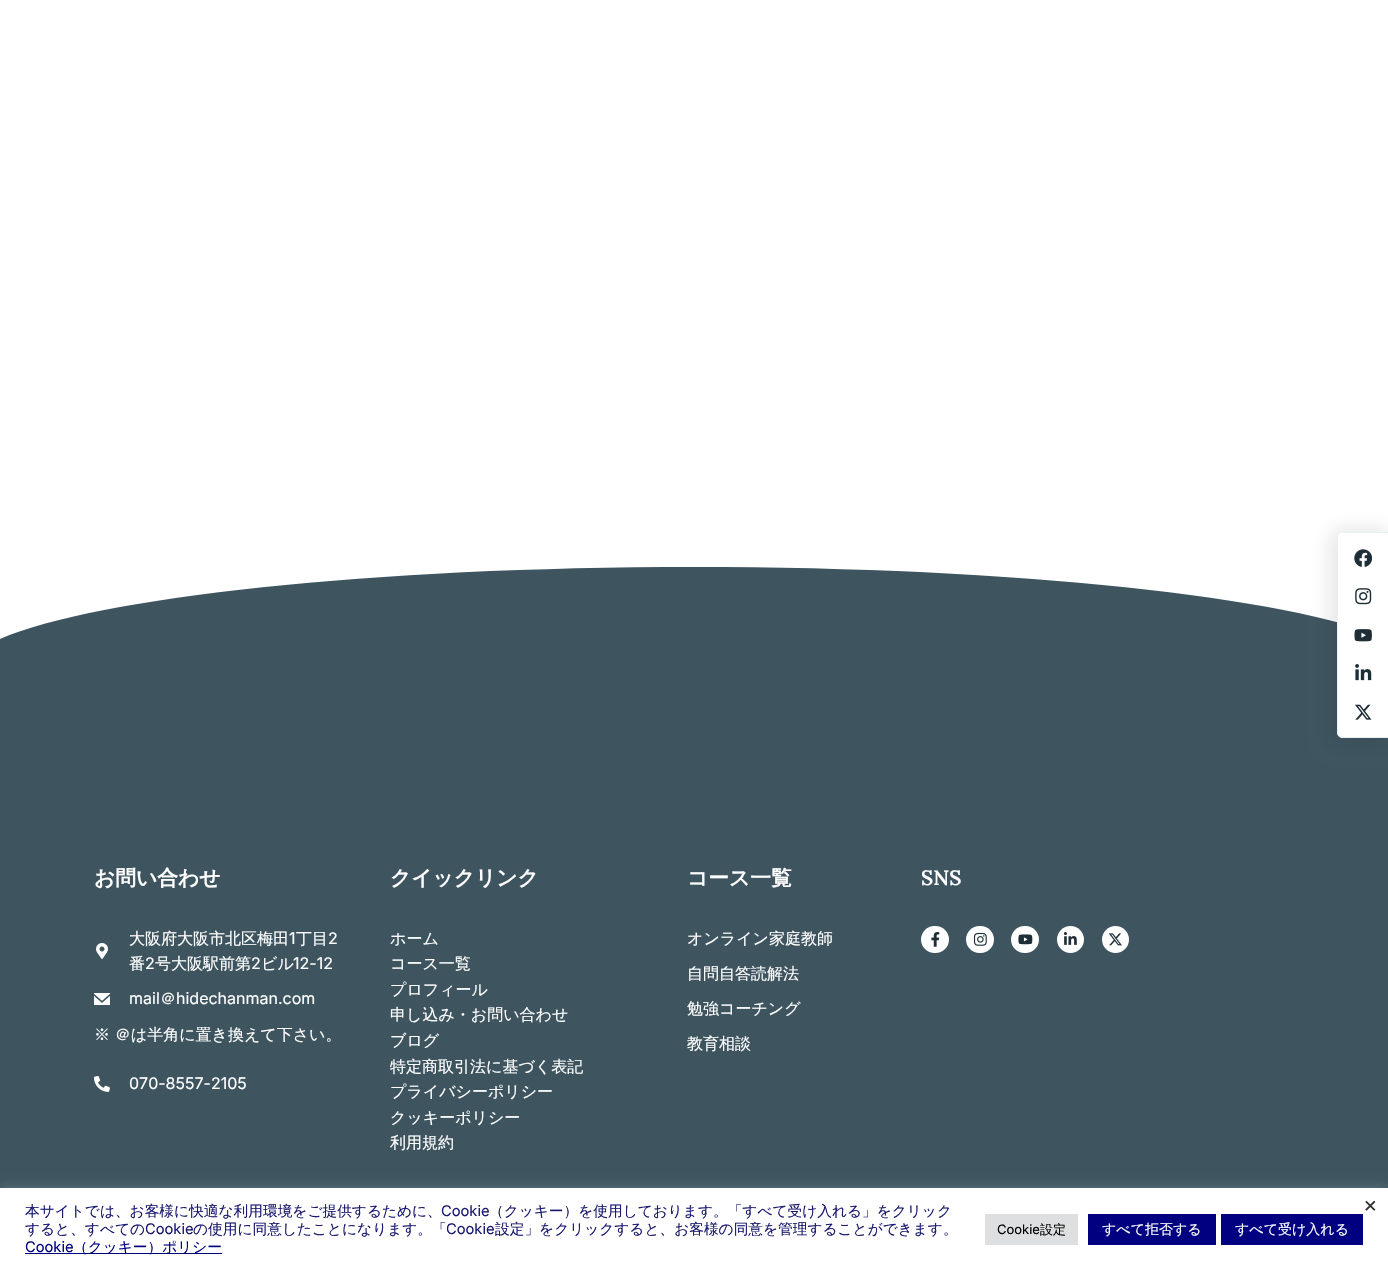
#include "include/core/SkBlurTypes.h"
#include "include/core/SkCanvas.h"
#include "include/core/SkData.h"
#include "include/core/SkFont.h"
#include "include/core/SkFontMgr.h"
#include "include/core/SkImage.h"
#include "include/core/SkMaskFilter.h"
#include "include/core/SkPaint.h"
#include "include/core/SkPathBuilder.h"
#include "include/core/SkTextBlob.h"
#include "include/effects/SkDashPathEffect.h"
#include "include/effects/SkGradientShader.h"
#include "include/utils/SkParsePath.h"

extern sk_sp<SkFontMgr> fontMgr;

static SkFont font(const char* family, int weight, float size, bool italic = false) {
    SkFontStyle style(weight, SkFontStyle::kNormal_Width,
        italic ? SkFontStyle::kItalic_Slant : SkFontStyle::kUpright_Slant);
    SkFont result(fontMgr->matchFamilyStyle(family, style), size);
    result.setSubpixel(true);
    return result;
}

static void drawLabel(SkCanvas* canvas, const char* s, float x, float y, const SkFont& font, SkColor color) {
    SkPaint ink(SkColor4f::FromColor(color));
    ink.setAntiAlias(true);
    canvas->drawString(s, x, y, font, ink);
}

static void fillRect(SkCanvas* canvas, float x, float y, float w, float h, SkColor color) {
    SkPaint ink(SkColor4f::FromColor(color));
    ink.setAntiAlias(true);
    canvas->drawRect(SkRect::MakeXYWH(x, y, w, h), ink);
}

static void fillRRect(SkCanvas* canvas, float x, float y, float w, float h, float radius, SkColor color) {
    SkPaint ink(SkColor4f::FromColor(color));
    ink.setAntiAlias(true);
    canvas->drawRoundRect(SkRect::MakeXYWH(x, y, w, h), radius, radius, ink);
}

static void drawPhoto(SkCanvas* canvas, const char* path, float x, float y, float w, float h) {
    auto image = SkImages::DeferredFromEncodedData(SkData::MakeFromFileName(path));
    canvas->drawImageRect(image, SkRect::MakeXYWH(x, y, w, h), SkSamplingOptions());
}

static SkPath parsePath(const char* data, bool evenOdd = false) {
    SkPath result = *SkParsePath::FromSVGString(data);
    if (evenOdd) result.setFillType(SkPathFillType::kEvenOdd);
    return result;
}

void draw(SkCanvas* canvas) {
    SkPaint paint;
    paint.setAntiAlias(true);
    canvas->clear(0xFFFFFFFF);
    fillRect(canvas, 0, 567, 1388, 621, 0xFF3E5560);
    paint.setColor(0xFFFFFFFF);
    canvas->drawPath(parsePath("M694 567C371 567 98 597 0 639V559H1388V639C1290 597 1017 567 694 567Z"), paint);
    paint.setColor(0x1C101014);
    paint.setMaskFilter(SkMaskFilter::MakeBlur(kNormal_SkBlurStyle, 10));
    canvas->drawRoundRect(SkRect::MakeXYWH(1330, 529, 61, 216), 11, 11, paint);
    paint.setMaskFilter(nullptr);
    paint.setColor(0xFFFFFFFF);
    canvas->drawPath(parsePath("M1343 532H1388V738H1343C1339.5 738 1337 735.5 1337 732V538C1337 534.5 1339.5 532 1343 532Z"), paint);
    paint.setColor(0xFFE9F0F2);
    canvas->drawPath(parsePath("M1343 532H1388V738H1343C1340 738 1337 735 1337 732V538C1337 535 1340 532 1343 532ZM1343 533H1388V737H1343C1340 737 1338 735 1338 732V538C1338 535 1340 533 1343 533Z", true), paint);
    drawPhoto(canvas, "assets/img1.png", 1354, 549, 18, 18);
    drawPhoto(canvas, "assets/img2.png", 1355, 588, 17, 17);
    drawPhoto(canvas, "assets/img3.png", 1354, 629, 18, 13);
    drawPhoto(canvas, "assets/img4.png", 1355, 664, 17, 17);
    drawPhoto(canvas, "assets/img5.png", 1355, 704, 17, 16);
    SkFont font1 = font("WenQuanYi Zen Hei", 700, 20.75f);
    drawLabel(canvas, "お問い合わせ", 94, 885, font1, 0xFFFFFFFF);
    drawPhoto(canvas, "assets/img6.png", 96, 943, 12, 16);
    SkFont font2 = font("WenQuanYi Zen Hei", 500, 16);
    drawLabel(canvas, "大阪府大阪市北区梅田", 129, 944, font2, 0xFFFFFFFF);
    SkFont font3 = font("Inter", 400, 16);
    drawLabel(canvas, "1", 289, 944, font3, 0xFFFFFFFF);
    drawLabel(canvas, "丁目", 296, 944, font2, 0xFFFFFFFF);
    drawLabel(canvas, "2", 328, 944, font3, 0xFFFFFFFF);
    drawLabel(canvas, "番", 129, 969, font2, 0xFFFFFFFF);
    drawLabel(canvas, "2", 145, 969, font3, 0xFFFFFFFF);
    drawLabel(canvas, "号大阪駅前第", 155, 969, font2, 0xFFFFFFFF);
    drawLabel(canvas, "2", 251, 969, font3, 0xFFFFFFFF);
    drawLabel(canvas, "ビル", 261, 969, font2, 0xFFFFFFFF);
    drawLabel(canvas, "12-12", 293, 969, font3, 0xFFFFFFFF);
    drawPhoto(canvas, "assets/img7.png", 94, 993, 16, 12);
    drawLabel(canvas, "mail", 129, 1004, font3, 0xFFFFFFFF);
    drawLabel(canvas, "＠", 160, 1004, font2, 0xFFFFFFFF);
    drawLabel(canvas, "hidechanman.com", 176, 1004, font3, 0xFFFFFFFF);
    drawLabel(canvas, "※ ＠は半角に置き換えて下さい。", 94, 1040, font2, 0xFFFFFFFF);
    drawPhoto(canvas, "assets/img8.png", 94, 1076, 16, 16);
    drawLabel(canvas, "070-8557-2105", 129, 1089, font3, 0xFFFFFFFF);
    drawLabel(canvas, "クイックリンク", 390, 885, font1, 0xFFFFFFFF);
    drawLabel(canvas, "ホーム", 390, 944, font2, 0xFFFFFFFF);
    drawLabel(canvas, "コース一覧", 390, 969, font2, 0xFFFFFFFF);
    drawLabel(canvas, "プロフィール", 390, 995, font2, 0xFFFFFFFF);
    drawLabel(canvas, "申し込み・お問い合わせ", 390, 1020, font2, 0xFFFFFFFF);
    drawLabel(canvas, "ブログ", 390, 1046, font2, 0xFFFFFFFF);
    drawLabel(canvas, "特定商取引法に基づく表記", 390, 1072, font2, 0xFFFFFFFF);
    drawLabel(canvas, "プライバシーポリシー", 390, 1097, font2, 0xFFFFFFFF);
    drawLabel(canvas, "クッキーポリシー", 390, 1123, font2, 0xFFFFFFFF);
    drawLabel(canvas, "利用規約", 390, 1148, font2, 0xFFFFFFFF);
    drawLabel(canvas, "コース一覧", 687, 885, font1, 0xFFFFFFFF);
    drawLabel(canvas, "オンライン家庭教師", 687, 944, font2, 0xFFFFFFFF);
    drawLabel(canvas, "自問自答読解法", 687, 979, font2, 0xFFFFFFFF);
    drawLabel(canvas, "勉強コーチング", 687, 1014, font2, 0xFFFFFFFF);
    drawLabel(canvas, "教育相談", 687, 1049, font2, 0xFFFFFFFF);
    SkFont font4 = font("Lora", 600, 20.75f);
    drawLabel(canvas, "SNS", 921, 885, font4, 0xFFFFFFFF);
    fillRRect(canvas, 921, 926, 28, 27, 13.5f, 0xFFFFFFFF);
    drawPhoto(canvas, "assets/img9.png", 931, 932, 9, 15);
    fillRRect(canvas, 966, 926, 28, 27, 13.5f, 0xFFFFFFFF);
    drawPhoto(canvas, "assets/img10.png", 973, 932, 14, 14);
    fillRRect(canvas, 1011, 926, 28, 27, 13.5f, 0xFFFFFFFF);
    drawPhoto(canvas, "assets/img11.png", 1018, 934, 15, 11);
    paint.setColor(0xFFFFFFFF);
    canvas->drawCircle(1070.5f, 939.5f, 13.5f, paint);
    drawPhoto(canvas, "assets/img12.png", 1063, 932, 14, 13);
    canvas->drawCircle(1115.5f, 939.5f, 13.5f, paint);
    drawPhoto(canvas, "assets/img13.png", 1108, 933, 14, 13);
    paint.setColor(0x4DACABAB);
    paint.setMaskFilter(SkMaskFilter::MakeBlur(kNormal_SkBlurStyle, 5));
    canvas->drawRect(SkRect::MakeXYWH(0, 1187, 1388, 82), paint);
    paint.setMaskFilter(nullptr);
    fillRect(canvas, 0, 1188, 1388, 82, 0xFFFFFFFF);
    SkFont font5 = font("WenQuanYi Zen Hei", 500, 14.7f);
    drawLabel(canvas, "本サイトでは、お客様に快適な利用環境をご提供するために、", 25, 1216, font5, 0xFF191970);
    SkFont font6 = font("Inter", 400, 14.7f);
    drawLabel(canvas, "Cookie", 441, 1216, font6, 0xFF191970);
    drawLabel(canvas, "（クッキー）を使用しております。「すべて受け入れる」をクリック", 489, 1216, font5, 0xFF191970);
    drawLabel(canvas, "すると、すべての", 25, 1234, font5, 0xFF191970);
    drawLabel(canvas, "Cookie", 145, 1234, font6, 0xFF191970);
    drawLabel(canvas, "の使用に同意したことになります。「", 193, 1234, font5, 0xFF191970);
    drawLabel(canvas, "Cookie", 446, 1234, font6, 0xFF191970);
    drawLabel(canvas, "設定」をクリックすると、お客様の同意を管理することができます。", 495, 1234, font5, 0xFF191970);
    drawLabel(canvas, "Cookie", 25, 1252, font6, 0xFF000080);
    fillRect(canvas, 25, 1253, 197, 1, 0xFF000080);
    drawLabel(canvas, "（クッキー）ポリシー", 73, 1252, font5, 0xFF000080);
    SkFont font7 = font("Inter", 400, 22);
    drawLabel(canvas, "×", 1363, 1212, font7, 0xFF333333);
    fillRect(canvas, 985, 1214, 93, 31, 0xFFDEDFE0);
    SkFont font8 = font("Inter", 400, 13);
    drawLabel(canvas, "Cookie", 997, 1234, font8, 0xFF000000);
    SkFont font9 = font("WenQuanYi Zen Hei", 500, 13);
    drawLabel(canvas, "設定", 1040, 1234, font9, 0xFF000000);
    fillRect(canvas, 1088, 1214, 128, 31, 0xFF000080);
    SkFont font10 = font("WenQuanYi Zen Hei", 500, 14);
    drawLabel(canvas, "すべて拒否する", 1102, 1234, font10, 0xFFFFFFFF);
    fillRect(canvas, 1221, 1214, 142, 31, 0xFF000080);
    drawLabel(canvas, "すべて受け入れる", 1235, 1234, font10, 0xFFFFFFFF);
}
